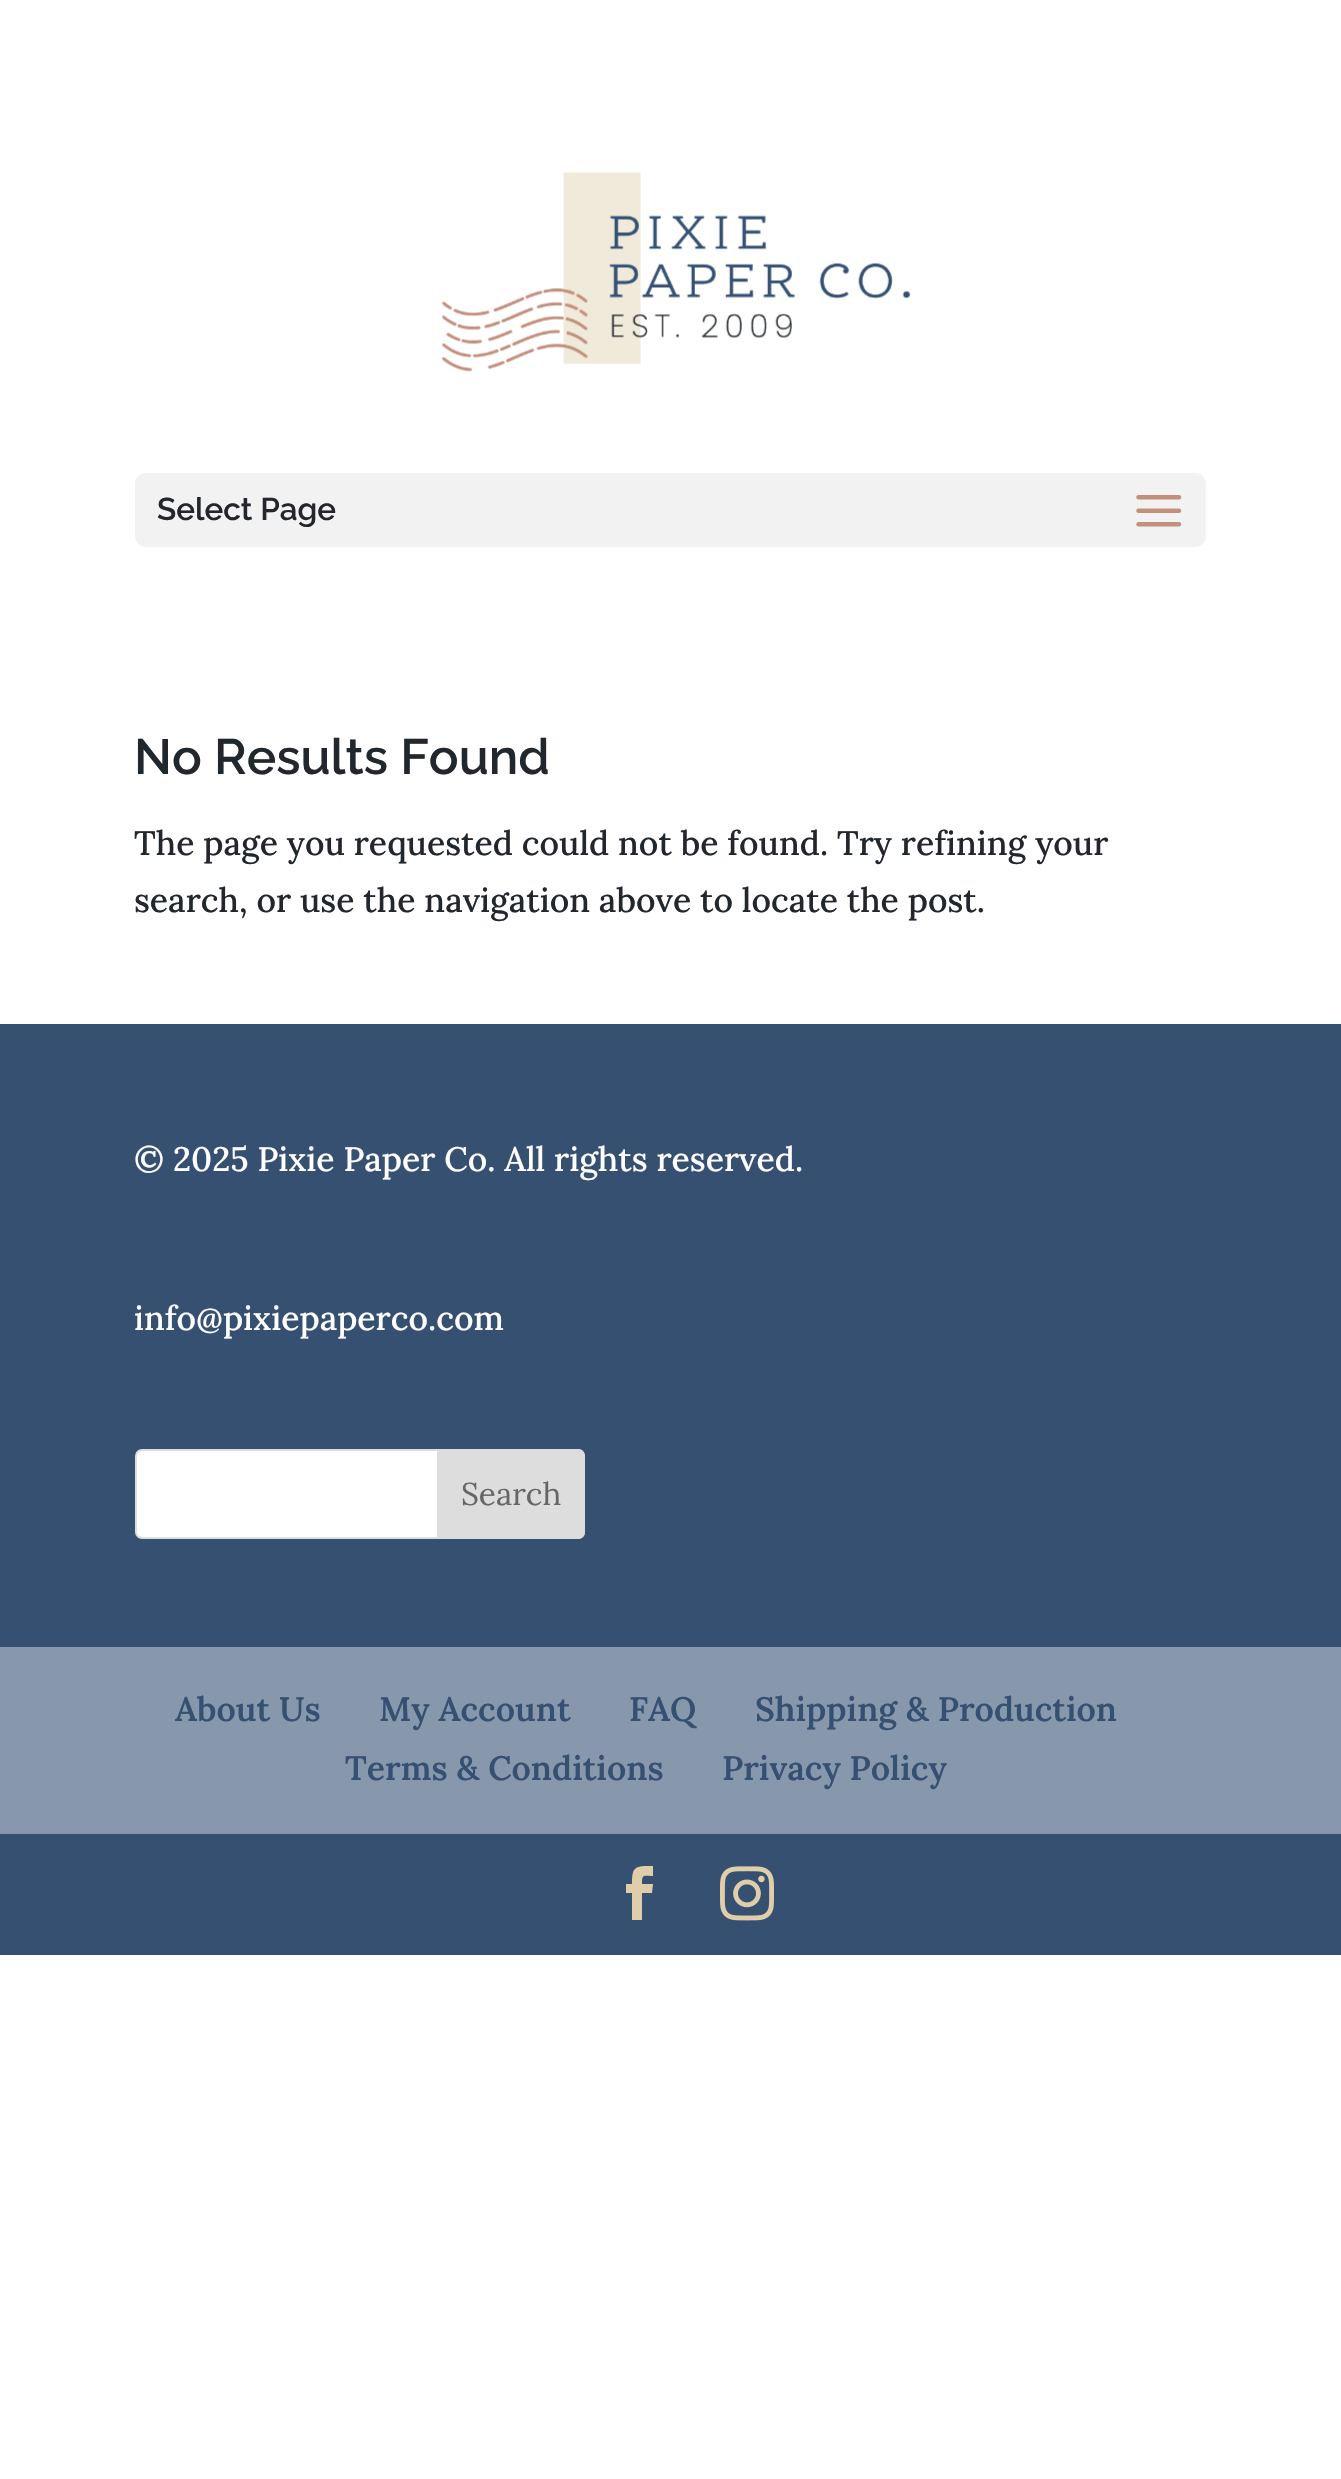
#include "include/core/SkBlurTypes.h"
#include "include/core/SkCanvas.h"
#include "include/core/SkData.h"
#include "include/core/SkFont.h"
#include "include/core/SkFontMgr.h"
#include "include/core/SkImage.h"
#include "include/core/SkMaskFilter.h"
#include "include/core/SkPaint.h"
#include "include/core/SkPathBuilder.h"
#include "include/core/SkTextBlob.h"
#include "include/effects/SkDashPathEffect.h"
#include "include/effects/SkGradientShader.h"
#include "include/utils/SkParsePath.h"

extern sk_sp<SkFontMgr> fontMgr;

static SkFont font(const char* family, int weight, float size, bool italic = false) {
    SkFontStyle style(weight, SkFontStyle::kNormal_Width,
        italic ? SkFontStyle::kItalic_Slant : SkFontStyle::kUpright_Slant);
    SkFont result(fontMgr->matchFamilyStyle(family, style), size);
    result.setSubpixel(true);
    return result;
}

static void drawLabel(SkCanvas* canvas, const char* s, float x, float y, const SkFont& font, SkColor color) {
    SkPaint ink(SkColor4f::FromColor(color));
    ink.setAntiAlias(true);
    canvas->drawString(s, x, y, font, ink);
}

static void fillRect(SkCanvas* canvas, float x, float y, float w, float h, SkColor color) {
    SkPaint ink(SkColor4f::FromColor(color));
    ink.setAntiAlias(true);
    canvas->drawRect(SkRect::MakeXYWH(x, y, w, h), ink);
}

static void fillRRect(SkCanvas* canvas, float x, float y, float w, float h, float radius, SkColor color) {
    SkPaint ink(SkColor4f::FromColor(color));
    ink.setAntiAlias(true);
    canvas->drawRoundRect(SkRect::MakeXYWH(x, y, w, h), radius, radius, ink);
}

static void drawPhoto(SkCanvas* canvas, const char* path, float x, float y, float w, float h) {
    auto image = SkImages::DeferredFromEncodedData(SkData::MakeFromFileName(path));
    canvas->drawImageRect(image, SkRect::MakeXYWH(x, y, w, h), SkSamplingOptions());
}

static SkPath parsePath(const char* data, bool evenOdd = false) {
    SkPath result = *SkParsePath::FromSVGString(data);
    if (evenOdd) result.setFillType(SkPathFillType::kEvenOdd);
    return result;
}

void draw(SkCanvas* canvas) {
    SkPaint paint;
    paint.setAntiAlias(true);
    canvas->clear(0xFFFFFFFF);
    drawPhoto(canvas, "assets/img1.png", 441, 172, 469, 200);
    fillRRect(canvas, 135, 473, 1071, 74, 11, 0xFFF2F2F2);
    SkFont font1 = font("Raleway", 600, 31.5f);
    drawLabel(canvas, "Select Page", 157, 520, font1, 0xFF21282D);
    drawPhoto(canvas, "assets/img2.png", 1136, 495, 46, 32);
    SkFont font2 = font("Raleway", 600, 49.5f);
    drawLabel(canvas, "No Results Found", 134, 774, font2, 0xFF21282D);
    SkFont font3 = font("Lora", 500, 33.75f);
    drawLabel(canvas, "The page you requested could not be found. Try refining your", 134, 855, font3, 0xFF21282D);
    drawLabel(canvas, "search, or use the navigation above to locate the post.", 134, 912, font3, 0xFF21282D);
    fillRect(canvas, 0, 1024, 1341, 931, 0xFF365072);
    drawLabel(canvas, "© 2025 Pixie Paper Co. All rights reserved.", 134, 1171, font3, 0xFFFFFFFF);
    drawLabel(canvas, "info@pixiepaperco.com", 134, 1330, font3, 0xFFFFFFFF);
    paint.setColor(0xFFFFFFFF);
    canvas->drawRoundRect(SkRect::MakeXYWH(136, 1450, 448, 88), 6, 6, paint);
    paint.setStroke(true);
    paint.setStrokeWidth(2);
    paint.setColor(0xFFDDDDDD);
    canvas->drawRoundRect(SkRect::MakeXYWH(136, 1450, 448, 88), 6, 6, paint);
    paint.setStroke(false);
    canvas->drawPath(parsePath("M438 1450H578C581.5 1450 584 1452.5 584 1456V1532C584 1535.5 581.5 1538 578 1538H438Z"), paint);
    paint.setStroke(true);
    canvas->drawPath(parsePath("M438 1450H578C581.5 1450 584 1452.5 584 1456V1532C584 1535.5 581.5 1538 578 1538H438Z"), paint);
    SkFont font4 = font("Lora", 400, 31.5f);
    drawLabel(canvas, "Search", 461, 1505, font4, 0xFF666666);
    fillRect(canvas, 0, 1647, 1341, 187, 0xFF8898AC);
    SkFont font5 = font("Lora", 600, 33.75f);
    drawLabel(canvas, "About Us", 175, 1721, font5, 0xFF365072);
    drawLabel(canvas, "My Account", 379, 1721, font5, 0xFF365072);
    drawLabel(canvas, "FAQ", 629, 1721, font5, 0xFF365072);
    drawLabel(canvas, "Shipping & Production", 755, 1721, font5, 0xFF365072);
    drawLabel(canvas, "Terms & Conditions", 345, 1780, font5, 0xFF365072);
    drawLabel(canvas, "Privacy Policy", 722, 1780, font5, 0xFF365072);
    paint.setStroke(false);
    paint.setColor(0xFFE0CDAA);
    canvas->drawPath(parsePath("M632 1920H642V1893H652L653 1884H642C642 1874 643 1876 653 1876V1866C635 1866 632 1866 632 1884H626V1893H632Z"), paint);
    drawPhoto(canvas, "assets/img3.png", 720, 1866, 54, 55);
}
